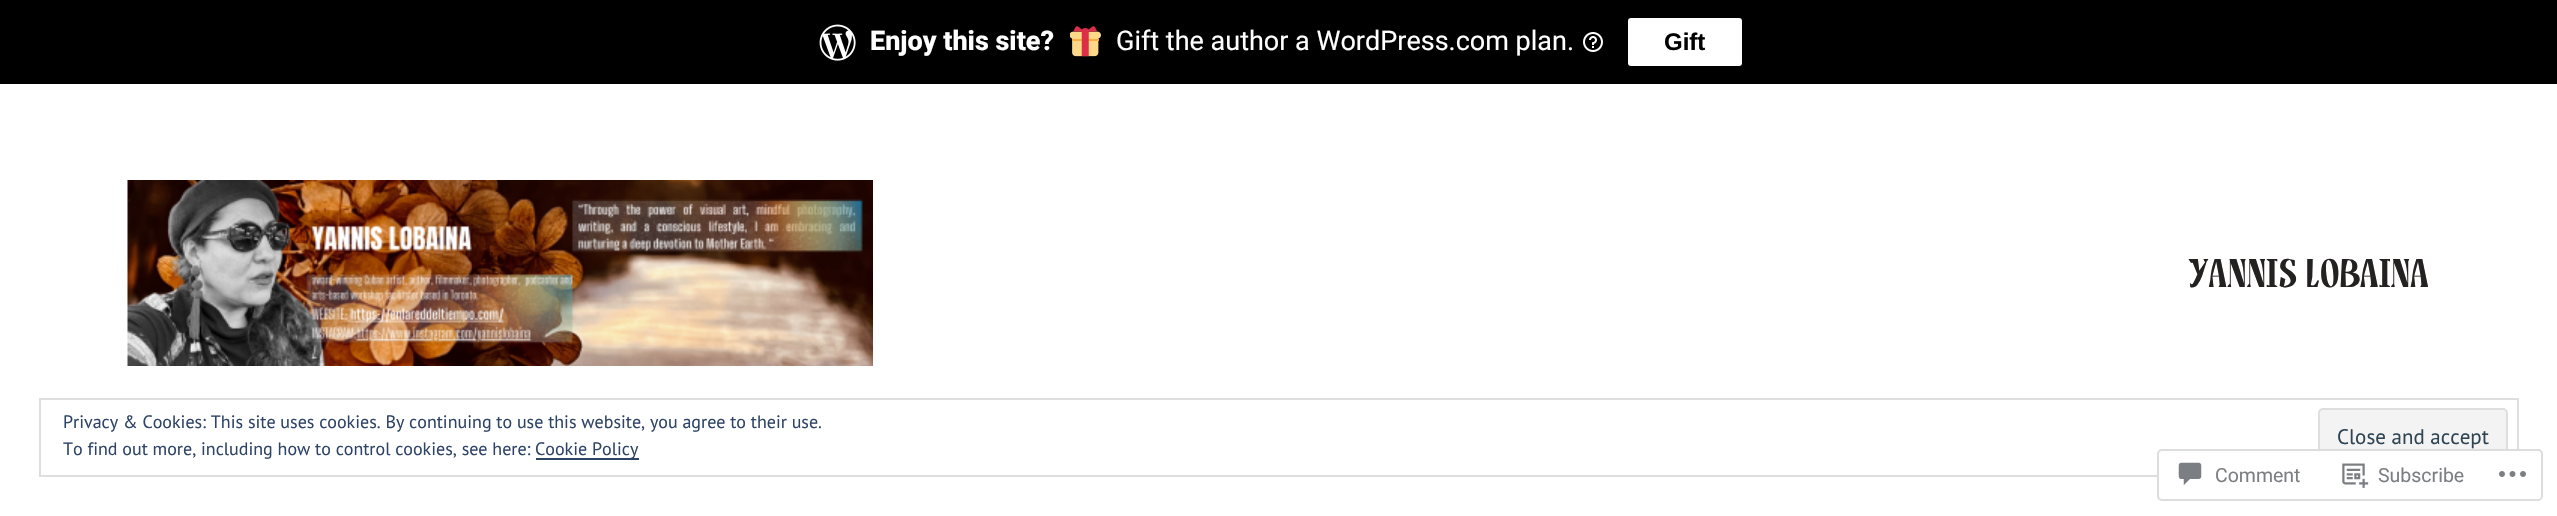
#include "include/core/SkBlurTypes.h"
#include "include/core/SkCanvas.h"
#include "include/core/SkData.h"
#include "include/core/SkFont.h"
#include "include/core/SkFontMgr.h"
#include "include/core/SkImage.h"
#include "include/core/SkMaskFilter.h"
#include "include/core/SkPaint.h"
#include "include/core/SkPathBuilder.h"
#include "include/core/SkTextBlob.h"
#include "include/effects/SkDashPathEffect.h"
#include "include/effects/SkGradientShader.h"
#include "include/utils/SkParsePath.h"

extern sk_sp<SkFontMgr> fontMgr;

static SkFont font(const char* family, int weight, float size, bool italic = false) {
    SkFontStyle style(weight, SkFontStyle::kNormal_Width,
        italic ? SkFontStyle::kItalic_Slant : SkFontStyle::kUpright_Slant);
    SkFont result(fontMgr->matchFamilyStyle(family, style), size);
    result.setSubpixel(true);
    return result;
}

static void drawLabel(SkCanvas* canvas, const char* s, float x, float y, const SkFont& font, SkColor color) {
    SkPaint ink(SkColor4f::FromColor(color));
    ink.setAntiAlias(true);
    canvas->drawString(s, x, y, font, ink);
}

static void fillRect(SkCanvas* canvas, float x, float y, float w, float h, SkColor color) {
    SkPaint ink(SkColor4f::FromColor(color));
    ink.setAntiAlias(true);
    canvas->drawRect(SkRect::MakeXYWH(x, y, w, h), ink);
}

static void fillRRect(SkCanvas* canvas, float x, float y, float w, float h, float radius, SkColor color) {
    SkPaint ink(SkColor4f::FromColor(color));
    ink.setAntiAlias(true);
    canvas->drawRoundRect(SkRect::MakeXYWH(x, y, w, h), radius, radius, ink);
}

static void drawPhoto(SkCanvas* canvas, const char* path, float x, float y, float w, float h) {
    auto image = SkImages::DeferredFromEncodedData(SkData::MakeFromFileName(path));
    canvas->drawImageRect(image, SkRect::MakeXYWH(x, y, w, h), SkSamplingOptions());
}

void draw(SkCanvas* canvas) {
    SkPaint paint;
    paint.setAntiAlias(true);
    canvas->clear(0xFFFFFFFF);
    fillRect(canvas, 0, 0, 2557, 84, 0xFF000000);
    drawPhoto(canvas, "assets/img1.png", 819, 24, 37, 37);
    SkFont font1 = font("Roboto", 800, 27);
    drawLabel(canvas, "Enjoy this site?", 870, 50, font1, 0xFFFFFFFF);
    drawPhoto(canvas, "assets/img2.png", 1070, 26, 31, 31);
    SkFont font2 = font("Roboto", 400, 27);
    drawLabel(canvas, "Gift the author a WordPress.com plan.", 1116, 50, font2, 0xFFFFFFFF);
    drawPhoto(canvas, "assets/img3.png", 1583, 32, 20, 20);
    fillRRect(canvas, 1628, 18, 114, 48, 3, 0xFFFFFFFF);
    SkFont font3 = font("Liberation Sans", 700, 24);
    drawLabel(canvas, "Gift", 1664, 50, font3, 0xFF000000);
    drawPhoto(canvas, "assets/img4.png", 127, 180, 746, 186);
    SkFont font4 = font("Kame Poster", 900, 38.75f);
    drawLabel(canvas, "YANNIS LOBAINA", 2188, 287, font4, 0xFF242121);
    paint.setStroke(true);
    paint.setStrokeWidth(2);
    paint.setColor(0xFFDEDEDE);
    canvas->drawRect(SkRect::MakeXYWH(40, 399, 2478, 77), paint);
    SkFont font5 = font("PT Sans", 400, 18);
    drawLabel(canvas, "Privacy & Cookies: This site uses cookies. By continuing to use this website, you agree to their use.", 63, 428, font5, 0xFF2E4467);
    drawLabel(canvas, "To find out more, including how to control cookies, see here:", 63, 455, font5, 0xFF2E4467);
    fillRect(canvas, 536, 458, 103, 2, 0xFF2E4467);
    drawLabel(canvas, "Cookie Policy", 535, 455, font5, 0xFF2E4467);
    paint.setStroke(false);
    paint.setColor(0xFFF3F3F3);
    canvas->drawRoundRect(SkRect::MakeXYWH(2319, 409, 188, 57), 4, 4, paint);
    paint.setStroke(true);
    paint.setColor(0xFFDEDEDE);
    canvas->drawRoundRect(SkRect::MakeXYWH(2319, 409, 188, 57), 4, 4, paint);
    SkFont font6 = font("PT Sans", 400, 21);
    drawLabel(canvas, "Close and accept", 2337, 444, font6, 0xFF2E4453);
    paint.setStroke(false);
    paint.setColor(0xFAFFFFFF);
    canvas->drawRoundRect(SkRect::MakeXYWH(2158, 450, 384, 50), 4, 4, paint);
    paint.setStroke(true);
    paint.setColor(0xFFDDDDDF);
    canvas->drawRoundRect(SkRect::MakeXYWH(2158, 450, 384, 50), 4, 4, paint);
    drawPhoto(canvas, "assets/img5.png", 2178, 462, 24, 24);
    SkFont font7 = font("Roboto", 400, 19.5f);
    drawLabel(canvas, "Comment", 2215, 482, font7, 0xFF7B7F84);
    drawPhoto(canvas, "assets/img6.png", 2342, 463, 27, 25);
    drawLabel(canvas, "Subscribe", 2378, 482, font7, 0xFF7B7F84);
    drawPhoto(canvas, "assets/img7.png", 2499, 471, 27, 6);
}
